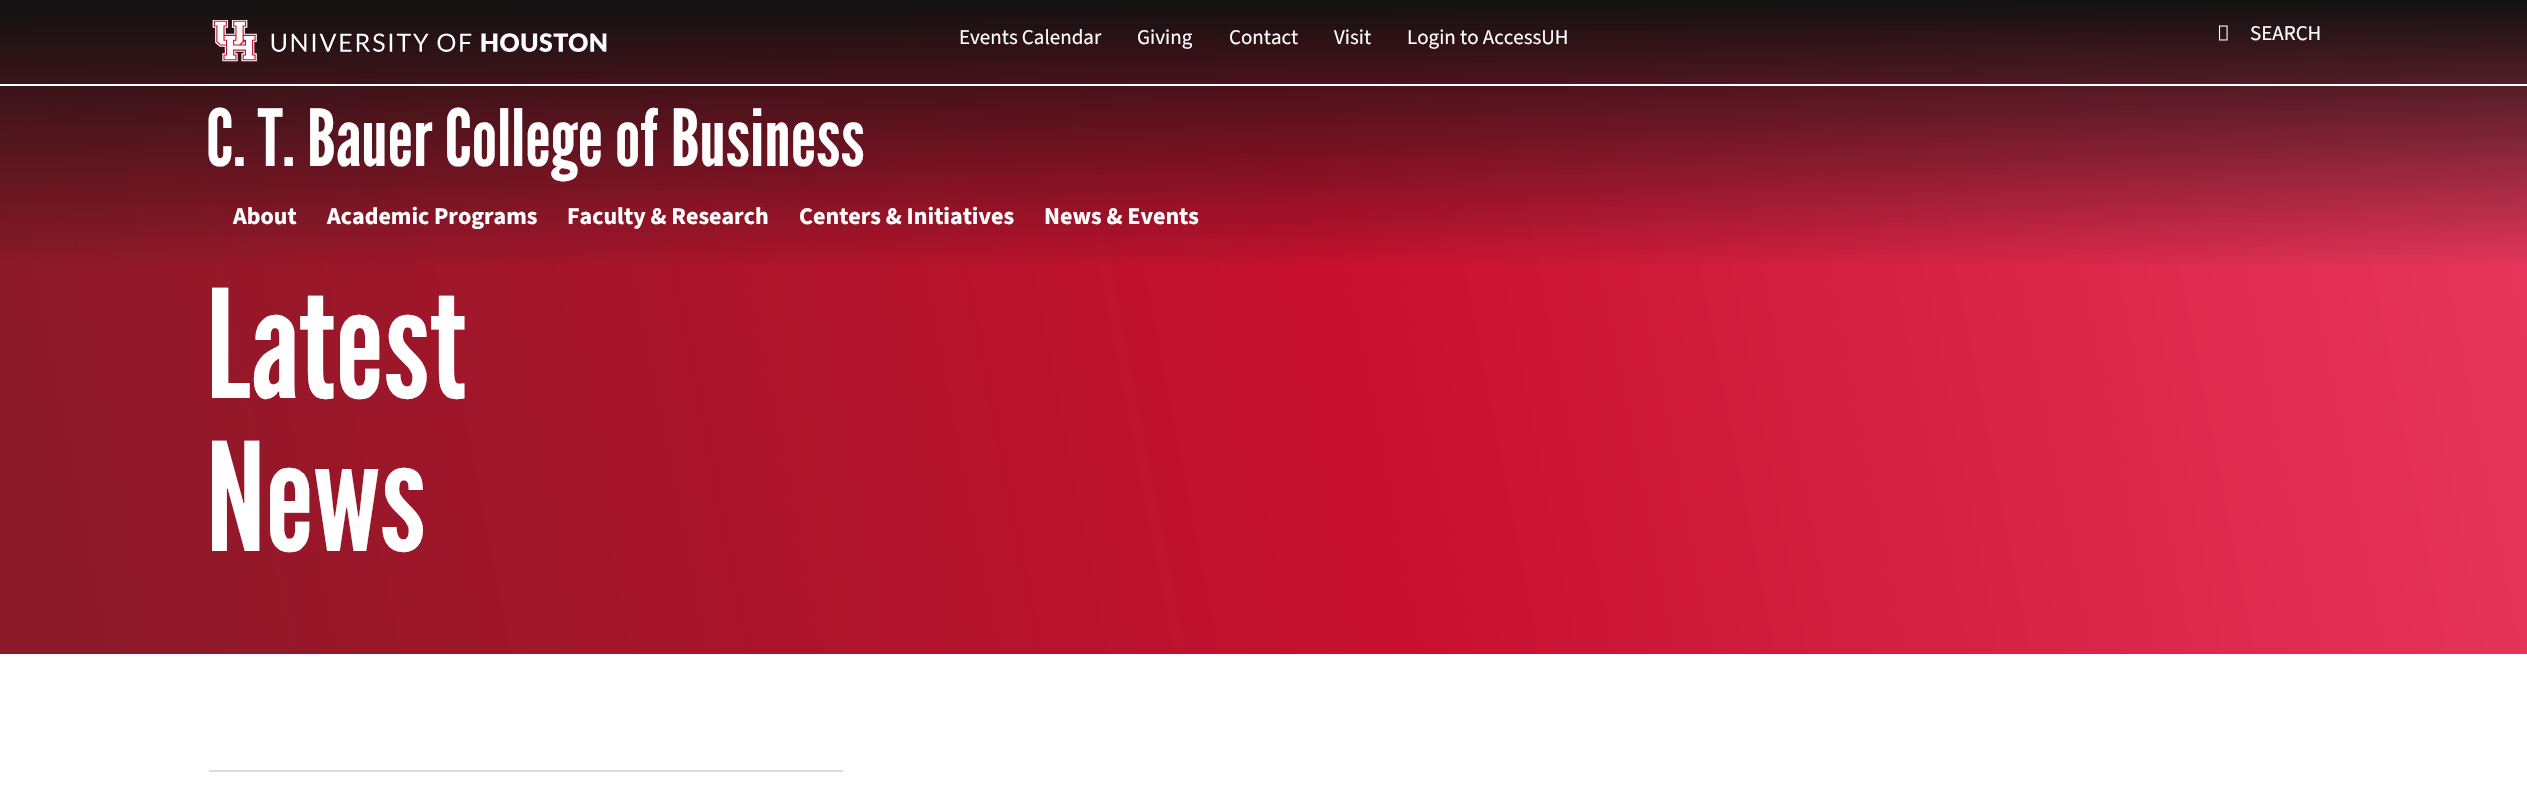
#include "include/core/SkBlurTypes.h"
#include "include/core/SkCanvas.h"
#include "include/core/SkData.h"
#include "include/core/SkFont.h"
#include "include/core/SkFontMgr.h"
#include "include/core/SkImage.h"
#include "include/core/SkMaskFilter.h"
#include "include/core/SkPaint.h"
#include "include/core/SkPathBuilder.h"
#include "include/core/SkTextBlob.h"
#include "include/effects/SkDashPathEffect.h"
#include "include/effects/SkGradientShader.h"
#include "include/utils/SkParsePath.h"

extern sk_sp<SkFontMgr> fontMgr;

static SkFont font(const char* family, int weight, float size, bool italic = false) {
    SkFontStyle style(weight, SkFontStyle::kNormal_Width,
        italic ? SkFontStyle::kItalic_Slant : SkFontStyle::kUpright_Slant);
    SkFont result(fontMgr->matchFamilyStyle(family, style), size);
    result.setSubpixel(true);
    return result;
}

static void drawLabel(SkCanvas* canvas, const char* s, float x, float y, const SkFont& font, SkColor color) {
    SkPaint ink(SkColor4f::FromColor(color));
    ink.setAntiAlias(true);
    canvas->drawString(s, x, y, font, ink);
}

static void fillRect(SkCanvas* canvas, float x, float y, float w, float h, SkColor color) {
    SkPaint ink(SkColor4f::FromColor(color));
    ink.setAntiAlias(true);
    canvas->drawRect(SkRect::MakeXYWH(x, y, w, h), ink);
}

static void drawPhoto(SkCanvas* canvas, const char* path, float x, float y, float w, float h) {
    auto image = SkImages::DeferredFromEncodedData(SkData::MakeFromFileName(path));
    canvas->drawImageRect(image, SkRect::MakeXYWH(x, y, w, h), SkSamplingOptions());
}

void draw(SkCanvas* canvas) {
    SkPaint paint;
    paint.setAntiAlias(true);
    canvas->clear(0xFFFFFFFF);
    {
        const SkColor colors[] = {0xFF8C1928, 0xFFC8102E, 0xFFE9375D};
        const float stops[] = {0.03f, 0.53f, 1};
        const SkPoint ends[] = {{-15, 576}, {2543, 78}};
        paint.setShader(SkGradientShader::MakeLinear(ends, colors, stops, 3, SkTileMode::kClamp));
        paint.setAlpha(255);
    }
    canvas->drawRect(SkRect::MakeXYWH(0, 2, 2527, 652), paint);
    {
        const SkColor colors[] = {0xFF111111, 0x00111111};
        const float stops[] = {0, 1};
        const SkPoint ends[] = {{1264, 0}, {1264, 270}};
        paint.setShader(SkGradientShader::MakeLinear(ends, colors, stops, 2, SkTileMode::kClamp));
        paint.setAlpha(255);
    }
    canvas->drawRect(SkRect::MakeXYWH(0, 0, 2527, 264), paint);
    fillRect(canvas, 0, 84, 2527, 2, 0xFFFFFFFF);
    drawPhoto(canvas, "assets/img1.png", 212, 20, 395, 42);
    SkFont font1 = font("Source Sans 3", 200, 21);
    drawLabel(canvas, "Events Calendar", 959, 44, font1, 0xFFFFFFFF);
    drawLabel(canvas, "Giving", 1137, 44, font1, 0xFFFFFFFF);
    drawLabel(canvas, "Contact", 1229, 44, font1, 0xFFFFFFFF);
    drawLabel(canvas, "Visit", 1334, 44, font1, 0xFFFFFFFF);
    drawLabel(canvas, "Login to AccessUH", 1407, 44, font1, 0xFFFFFFFF);
    drawPhoto(canvas, "assets/img2.png", 2218, 25, 10, 16);
    drawLabel(canvas, "SEARCH", 2250, 40, font1, 0xFFFFFFFF);
    SkFont font2 = font("League Gothic", 400, 78.75f);
    drawLabel(canvas, "C. T. Bauer College of Business", 206, 166, font2, 0xFFFFFFFF);
    SkFont font3 = font("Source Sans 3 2", 200, 24);
    drawLabel(canvas, "About", 233, 224, font3, 0xFFFFFFFF);
    drawLabel(canvas, "Academic Programs", 327, 224, font3, 0xFFFFFFFF);
    drawLabel(canvas, "Faculty & Research", 567, 224, font3, 0xFFFFFFFF);
    drawLabel(canvas, "Centers & Initiatives", 799, 224, font3, 0xFFFFFFFF);
    drawLabel(canvas, "News & Events", 1044, 224, font3, 0xFFFFFFFF);
    SkFont font4 = font("League Gothic", 400, 150);
    drawLabel(canvas, "Latest", 206, 398, font4, 0xFFFFFFFF);
    drawLabel(canvas, "News", 206, 551, font4, 0xFFFFFFFF);
    fillRect(canvas, 209, 770, 634, 2, 0xFFDDDDDD);
}
